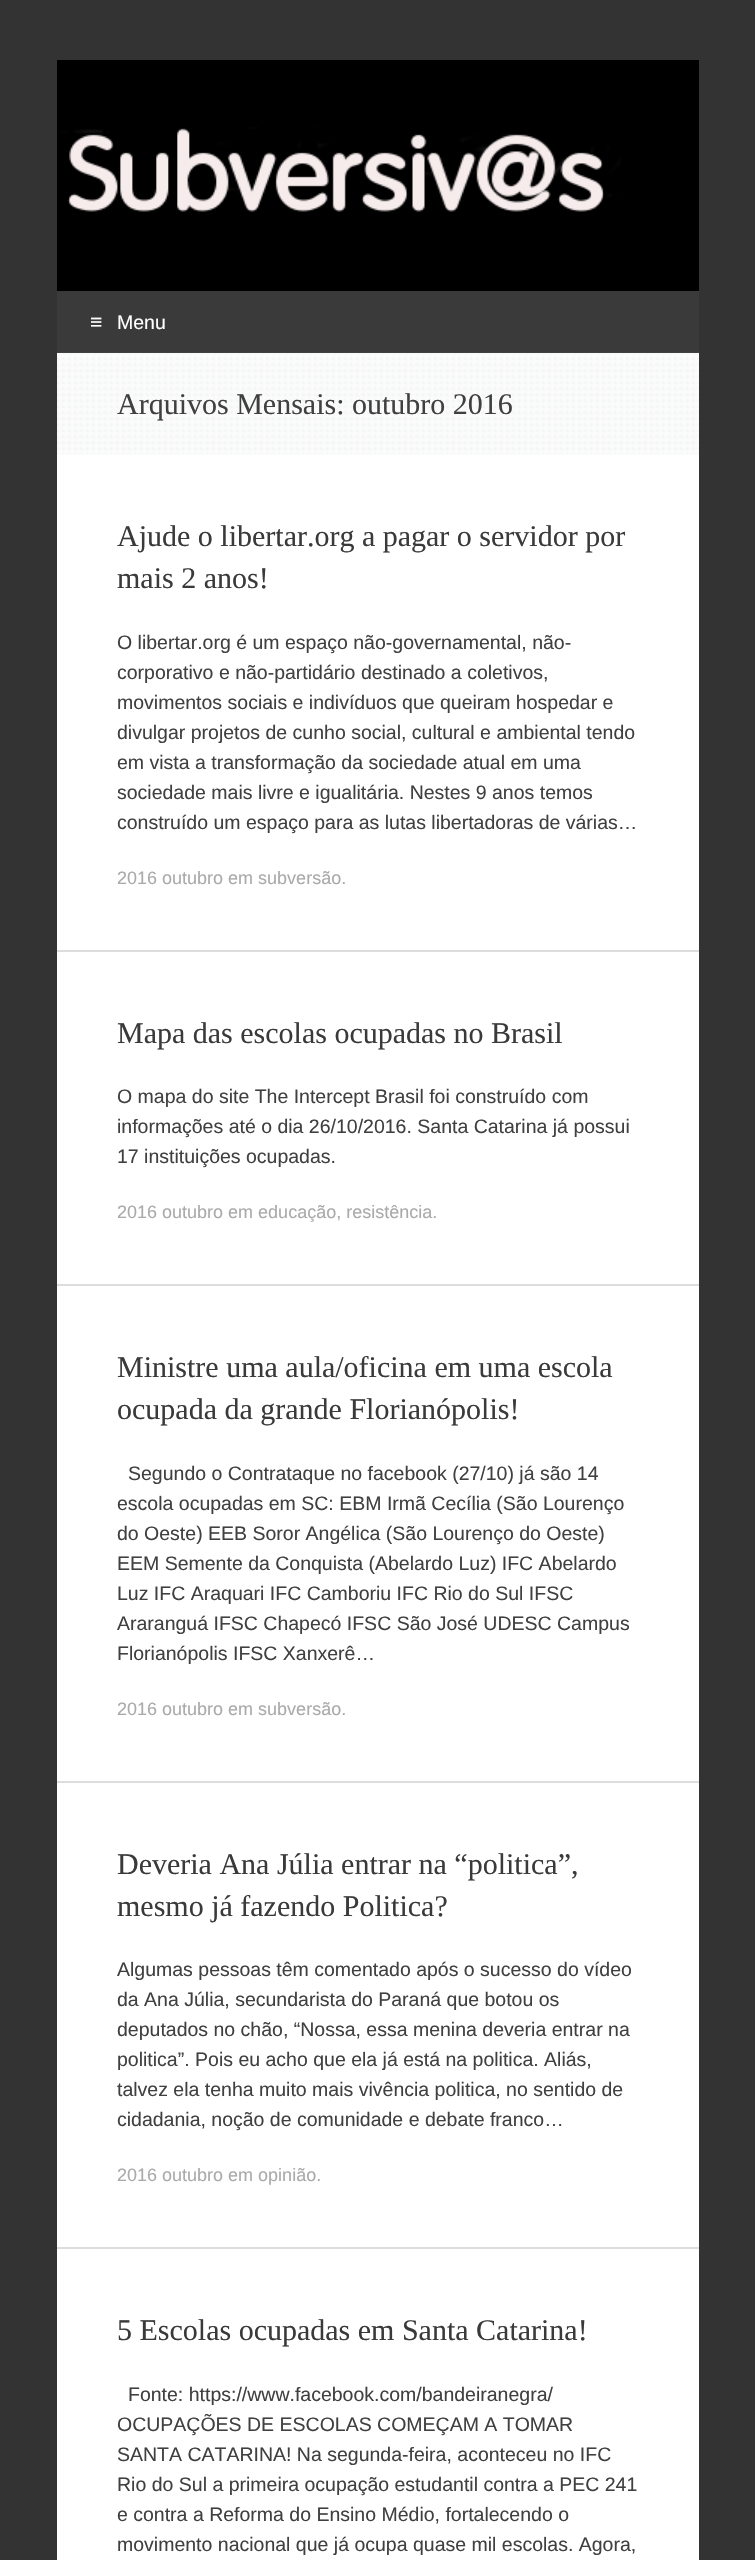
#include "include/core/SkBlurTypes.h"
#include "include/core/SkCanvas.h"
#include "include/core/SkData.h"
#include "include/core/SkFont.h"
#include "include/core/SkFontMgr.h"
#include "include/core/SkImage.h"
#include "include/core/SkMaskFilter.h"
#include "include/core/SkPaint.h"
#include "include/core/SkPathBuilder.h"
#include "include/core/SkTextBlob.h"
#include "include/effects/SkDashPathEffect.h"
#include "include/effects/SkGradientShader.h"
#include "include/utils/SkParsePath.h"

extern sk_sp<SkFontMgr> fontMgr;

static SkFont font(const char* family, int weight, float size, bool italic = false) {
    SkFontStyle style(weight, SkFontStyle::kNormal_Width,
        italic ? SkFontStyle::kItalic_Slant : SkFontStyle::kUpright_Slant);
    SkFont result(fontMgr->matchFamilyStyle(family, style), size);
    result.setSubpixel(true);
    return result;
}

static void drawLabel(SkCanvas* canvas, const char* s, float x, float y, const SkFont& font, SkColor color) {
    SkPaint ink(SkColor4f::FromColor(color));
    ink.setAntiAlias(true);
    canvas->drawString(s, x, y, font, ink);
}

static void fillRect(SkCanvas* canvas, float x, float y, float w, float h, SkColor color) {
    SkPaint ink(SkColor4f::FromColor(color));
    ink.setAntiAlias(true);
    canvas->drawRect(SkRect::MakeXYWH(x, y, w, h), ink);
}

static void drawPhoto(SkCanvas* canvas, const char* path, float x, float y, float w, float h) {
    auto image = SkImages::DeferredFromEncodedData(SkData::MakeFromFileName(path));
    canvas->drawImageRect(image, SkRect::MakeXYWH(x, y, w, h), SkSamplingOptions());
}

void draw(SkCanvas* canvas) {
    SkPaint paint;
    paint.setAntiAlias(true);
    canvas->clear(0xFF333333);
    fillRect(canvas, 57, 353, 642, 2207, 0xFFFFFFFF);
    drawPhoto(canvas, "assets/img1.png", 57, 60, 642, 231);
    fillRect(canvas, 57, 291, 642, 62, 0xFF3A3A3A);
    SkFont font1 = font("Liberation Sans", 400, 21);
    drawLabel(canvas, "≡", 90, 329, font1, 0xFFFFFFFF);
    SkFont font2 = font("Liberation Sans", 400, 19.5f);
    drawLabel(canvas, "Menu", 117, 329, font2, 0xFFFFFFFF);
    drawPhoto(canvas, "assets/img2.png", 57, 352, 642, 103);
    SkFont font3 = font("Liberation Serif", 400, 30);
    drawLabel(canvas, "Arquivos Mensais: outubro 2016", 117, 414, font3, 0xFF404040);
    fillRect(canvas, 57, 950, 642, 2, 0xFFDDDDDD);
    drawLabel(canvas, "Ajude o libertar.org a pagar o servidor por", 117, 546, font3, 0xFF3A3A3A);
    drawLabel(canvas, "mais 2 anos!", 117, 588, font3, 0xFF3A3A3A);
    drawLabel(canvas, "O libertar.org é um espaço não-governamental, não-", 117, 649, font2, 0xFF404040);
    drawLabel(canvas, "corporativo e não-partidário destinado a coletivos,", 117, 679, font2, 0xFF404040);
    drawLabel(canvas, "movimentos sociais e indivíduos que queiram hospedar e", 117, 709, font2, 0xFF404040);
    drawLabel(canvas, "divulgar projetos de cunho social, cultural e ambiental tendo", 117, 739, font2, 0xFF404040);
    drawLabel(canvas, "em vista a transformação da sociedade atual em uma", 117, 769, font2, 0xFF404040);
    drawLabel(canvas, "sociedade mais livre e igualitária. Nestes 9 anos temos", 117, 799, font2, 0xFF404040);
    drawLabel(canvas, "construído um espaço para as lutas libertadoras de várias…", 117, 829, font2, 0xFF404040);
    SkFont font4 = font("Liberation Sans", 400, 18);
    drawLabel(canvas, "2016 outubro em subversão.", 117, 884, font4, 0xFFAAAAAA);
    fillRect(canvas, 57, 1284, 642, 2, 0xFFDDDDDD);
    drawLabel(canvas, "Mapa das escolas ocupadas no Brasil", 117, 1043, font3, 0xFF3A3A3A);
    drawLabel(canvas, "O mapa do site The Intercept Brasil foi construído com", 117, 1103, font2, 0xFF404040);
    drawLabel(canvas, "informações até o dia 26/10/2016. Santa Catarina já possui", 117, 1133, font2, 0xFF404040);
    drawLabel(canvas, "17 instituições ocupadas.", 117, 1163, font2, 0xFF404040);
    drawLabel(canvas, "2016 outubro em educação, resistência.", 117, 1218, font4, 0xFFAAAAAA);
    fillRect(canvas, 57, 1781, 642, 2, 0xFFDDDDDD);
    drawLabel(canvas, "Ministre uma aula/oficina em uma escola", 117, 1377, font3, 0xFF3A3A3A);
    drawLabel(canvas, "ocupada da grande Florianópolis!", 117, 1419, font3, 0xFF3A3A3A);
    drawLabel(canvas, "Segundo o Contrataque no facebook (27/10) já são 14", 128, 1480, font2, 0xFF404040);
    drawLabel(canvas, "escola ocupadas em SC: EBM Irmã Cecília (São Lourenço", 117, 1510, font2, 0xFF404040);
    drawLabel(canvas, "do Oeste) EEB Soror Angélica (São Lourenço do Oeste)", 117, 1540, font2, 0xFF404040);
    drawLabel(canvas, "EEM Semente da Conquista (Abelardo Luz) IFC Abelardo", 117, 1570, font2, 0xFF404040);
    drawLabel(canvas, "Luz IFC Araquari IFC Camboriu IFC Rio do Sul IFSC", 117, 1600, font2, 0xFF404040);
    drawLabel(canvas, "Araranguá IFSC Chapecó IFSC São José UDESC Campus", 117, 1630, font2, 0xFF404040);
    drawLabel(canvas, "Florianópolis IFSC Xanxerê…", 117, 1660, font2, 0xFF404040);
    drawLabel(canvas, "2016 outubro em subversão.", 117, 1715, font4, 0xFFAAAAAA);
    fillRect(canvas, 57, 2247, 642, 2, 0xFFDDDDDD);
    drawLabel(canvas, "Deveria Ana Júlia entrar na “politica”,", 117, 1874, font3, 0xFF3A3A3A);
    drawLabel(canvas, "mesmo já fazendo Politica?", 117, 1916, font3, 0xFF3A3A3A);
    drawLabel(canvas, "Algumas pessoas têm comentado após o sucesso do vídeo", 117, 1976, font2, 0xFF404040);
    drawLabel(canvas, "da Ana Júlia, secundarista do Paraná que botou os", 117, 2006, font2, 0xFF404040);
    drawLabel(canvas, "deputados no chão, “Nossa, essa menina deveria entrar na", 117, 2036, font2, 0xFF404040);
    drawLabel(canvas, "politica”. Pois eu acho que ela já está na politica. Aliás,", 117, 2066, font2, 0xFF404040);
    drawLabel(canvas, "talvez ela tenha muito mais vivência politica, no sentido de", 117, 2096, font2, 0xFF404040);
    drawLabel(canvas, "cidadania, noção de comunidade e debate franco…", 117, 2126, font2, 0xFF404040);
    drawLabel(canvas, "2016 outubro em opinião.", 117, 2181, font4, 0xFFAAAAAA);
    drawLabel(canvas, "5 Escolas ocupadas em Santa Catarina!", 117, 2340, font3, 0xFF3A3A3A);
    drawLabel(canvas, "Fonte: https://www.facebook.com/bandeiranegra/", 128, 2401, font2, 0xFF404040);
    drawLabel(canvas, "OCUPAÇÕES DE ESCOLAS COMEÇAM A TOMAR", 117, 2431, font2, 0xFF404040);
    drawLabel(canvas, "SANTA CATARINA! Na segunda-feira, aconteceu no IFC", 117, 2461, font2, 0xFF404040);
    drawLabel(canvas, "Rio do Sul a primeira ocupação estudantil contra a PEC 241", 117, 2491, font2, 0xFF404040);
    drawLabel(canvas, "e contra a Reforma do Ensino Médio, fortalecendo o", 117, 2521, font2, 0xFF404040);
    drawLabel(canvas, "movimento nacional que já ocupa quase mil escolas. Agora,", 117, 2551, font2, 0xFF404040);
}
